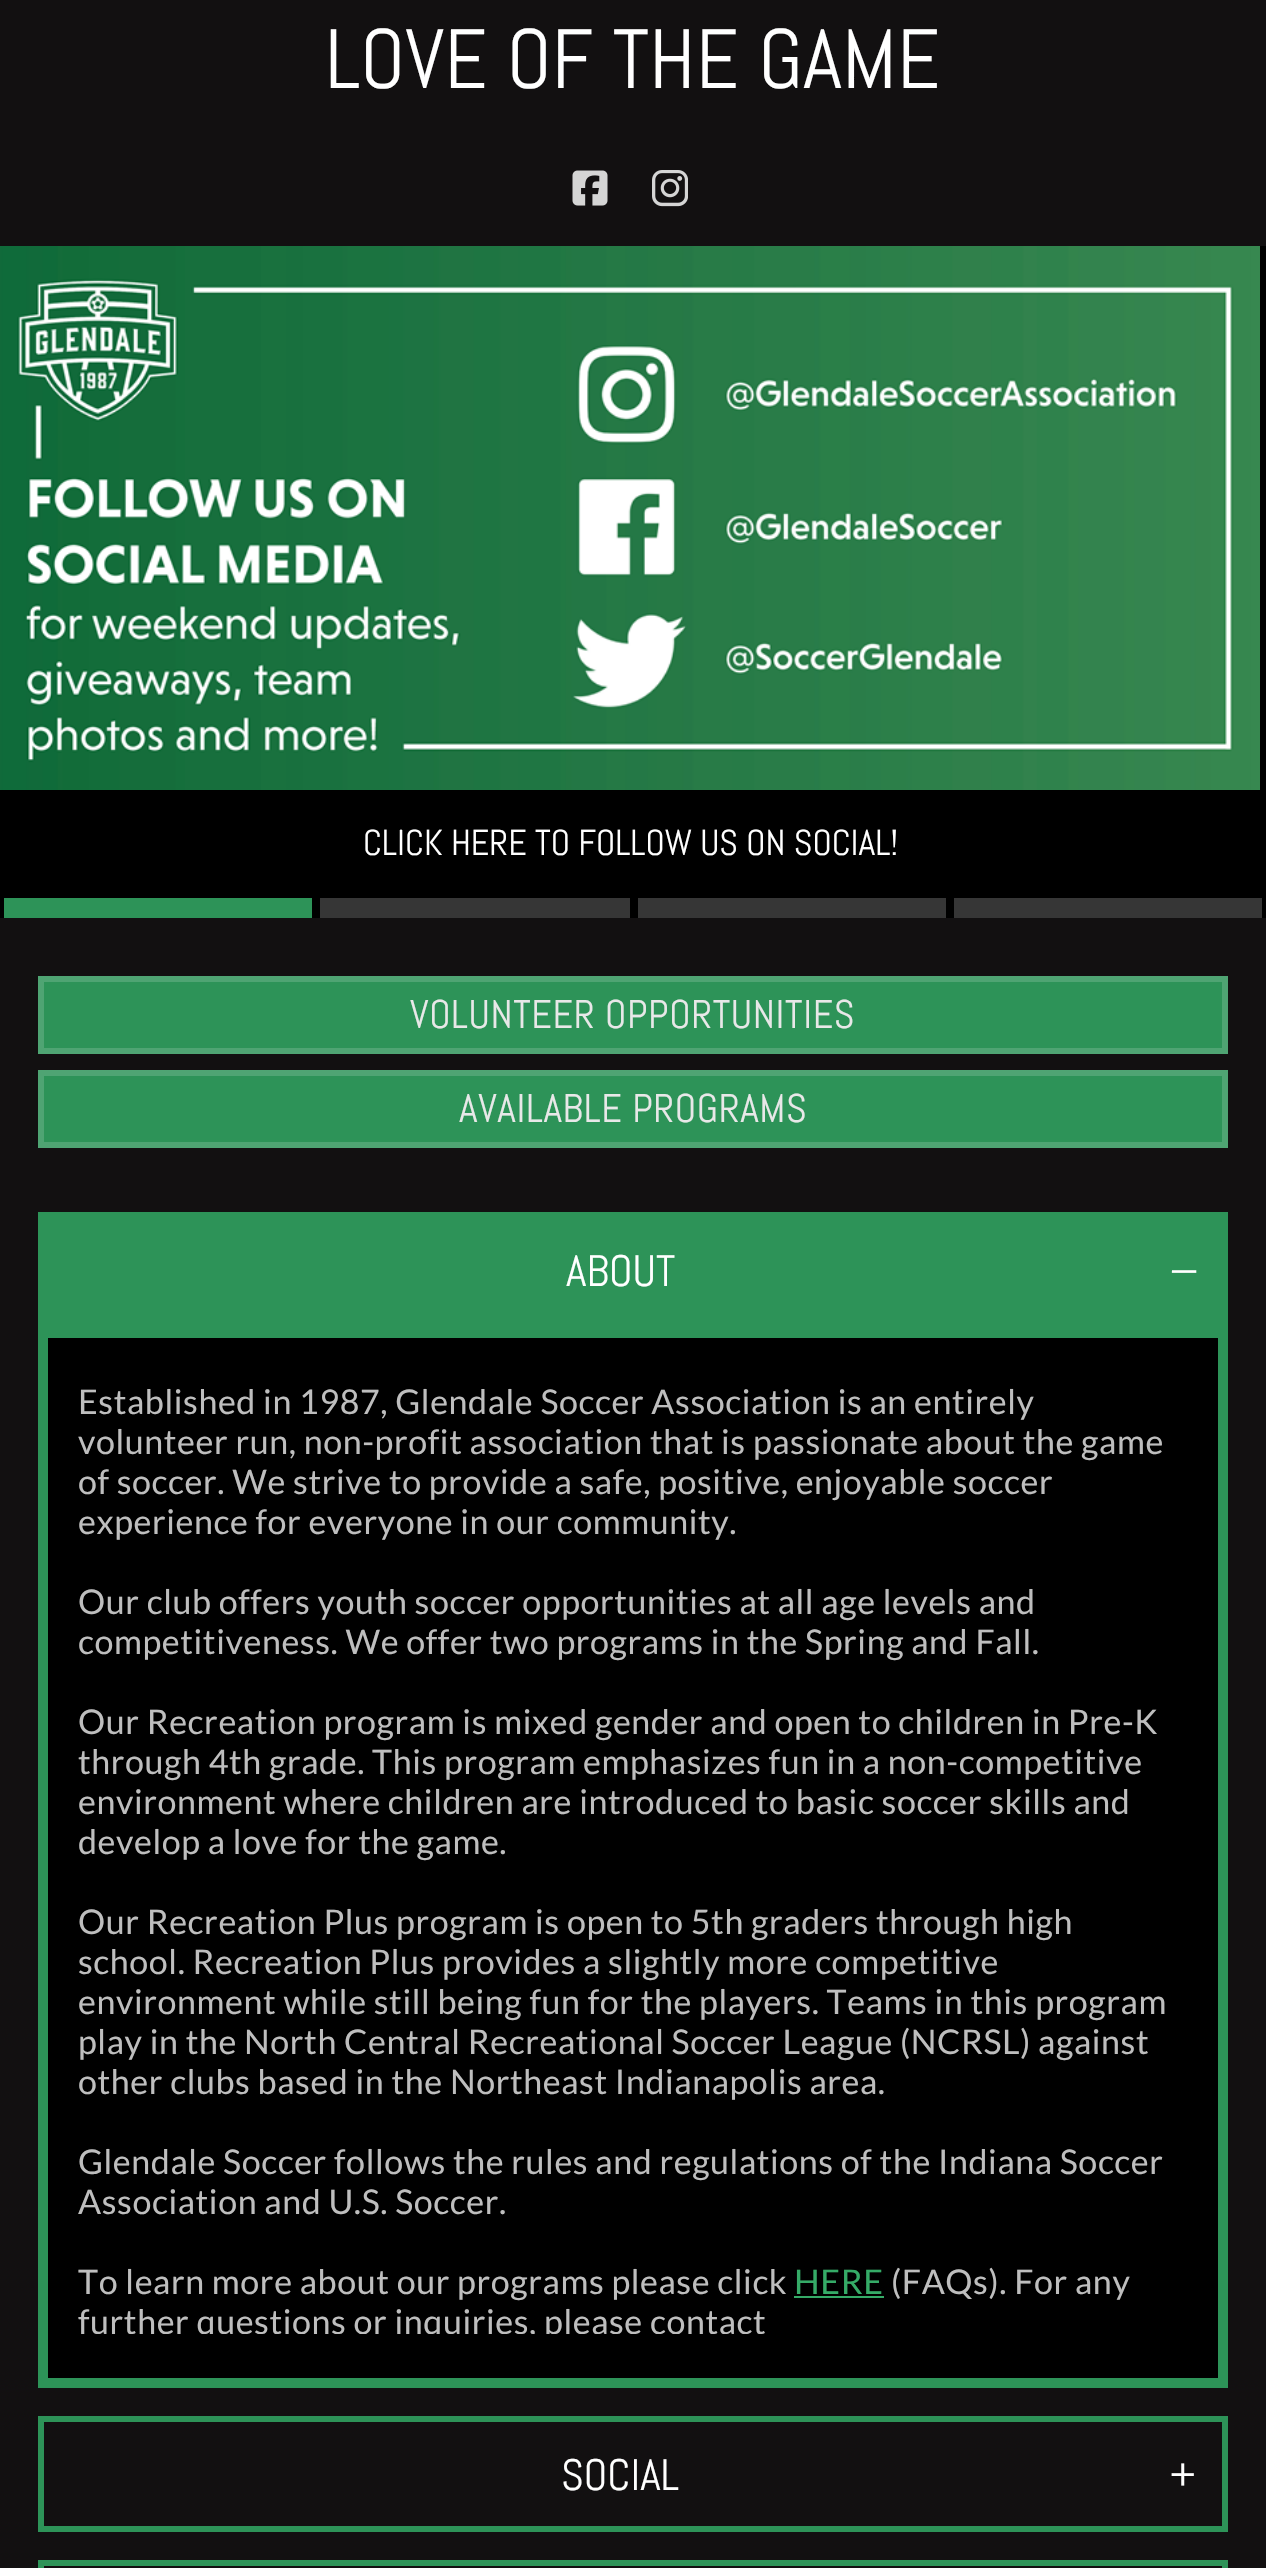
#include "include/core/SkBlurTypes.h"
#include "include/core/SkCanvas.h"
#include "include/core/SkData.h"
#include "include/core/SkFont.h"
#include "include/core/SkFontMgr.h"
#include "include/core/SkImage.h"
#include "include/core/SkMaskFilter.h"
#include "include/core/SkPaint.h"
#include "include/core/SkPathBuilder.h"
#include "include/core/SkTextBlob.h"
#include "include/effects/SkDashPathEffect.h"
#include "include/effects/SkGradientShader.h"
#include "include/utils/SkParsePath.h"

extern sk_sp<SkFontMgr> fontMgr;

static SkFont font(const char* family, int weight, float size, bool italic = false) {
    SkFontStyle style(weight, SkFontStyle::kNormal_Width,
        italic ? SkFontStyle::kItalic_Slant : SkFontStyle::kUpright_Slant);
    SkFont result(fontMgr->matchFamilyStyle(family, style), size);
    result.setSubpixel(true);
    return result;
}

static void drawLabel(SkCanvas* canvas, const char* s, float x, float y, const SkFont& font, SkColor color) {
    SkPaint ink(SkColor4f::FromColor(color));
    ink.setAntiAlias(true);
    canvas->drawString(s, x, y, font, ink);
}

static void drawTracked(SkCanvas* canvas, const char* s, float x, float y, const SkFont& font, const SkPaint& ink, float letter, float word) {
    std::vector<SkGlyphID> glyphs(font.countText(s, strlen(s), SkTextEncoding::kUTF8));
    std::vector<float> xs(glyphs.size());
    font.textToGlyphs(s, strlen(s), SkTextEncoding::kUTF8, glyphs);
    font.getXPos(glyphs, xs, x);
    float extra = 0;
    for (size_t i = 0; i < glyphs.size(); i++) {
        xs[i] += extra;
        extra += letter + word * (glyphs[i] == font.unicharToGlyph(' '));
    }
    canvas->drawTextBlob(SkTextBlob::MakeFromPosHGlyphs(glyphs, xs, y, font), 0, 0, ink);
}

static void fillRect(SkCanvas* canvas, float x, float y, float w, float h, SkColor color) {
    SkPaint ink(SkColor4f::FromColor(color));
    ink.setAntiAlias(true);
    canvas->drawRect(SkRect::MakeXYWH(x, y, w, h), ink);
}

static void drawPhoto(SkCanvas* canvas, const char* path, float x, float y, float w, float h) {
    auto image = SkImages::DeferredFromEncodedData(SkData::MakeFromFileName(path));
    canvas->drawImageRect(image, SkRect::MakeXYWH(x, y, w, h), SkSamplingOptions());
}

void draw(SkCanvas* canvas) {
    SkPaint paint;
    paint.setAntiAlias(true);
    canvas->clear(0xFF121011);
    SkFont font1 = font("Abel", 400, 84);
    drawLabel(canvas, "LOVE OF THE GAME", 325, 88, font1, 0xFFFFFFFF);
    drawPhoto(canvas, "assets/img1.png", 572, 170, 36, 36);
    drawPhoto(canvas, "assets/img2.png", 652, 170, 36, 37);
    fillRect(canvas, 0, 246, 1266, 672, 0xFF000000);
    drawPhoto(canvas, "assets/img3.png", 0, 246, 1260, 544);
    SkFont font2 = font("Abel", 400, 36);
    drawLabel(canvas, "CLICK HERE TO FOLLOW US ON SOCIAL!", 363, 855, font2, 0xFFFFFFFF);
    fillRect(canvas, 4, 898, 308, 20, 0xFF2D9358);
    fillRect(canvas, 320, 898, 310, 20, 0xFF363636);
    fillRect(canvas, 638, 898, 308, 20, 0xFF363636);
    fillRect(canvas, 954, 898, 308, 20, 0xFF363636);
    paint.setColor(0xFF2D9358);
    canvas->drawRect(SkRect::MakeXYWH(41, 979, 1184, 72), paint);
    paint.setStroke(true);
    paint.setStrokeWidth(6);
    paint.setColor(0xFF4FA473);
    canvas->drawRect(SkRect::MakeXYWH(41, 979, 1184, 72), paint);
    SkFont font3 = font("Abel", 400, 40);
    paint.setStroke(false);
    paint.setColor(0xFFE8E8E8);
    drawTracked(canvas, "VOLUNTEER OPPORTUNITIES", 410, 1028, font3, paint, 0.6f, 0);
    paint.setColor(0xFF2D9358);
    canvas->drawRect(SkRect::MakeXYWH(41, 1073, 1184, 72), paint);
    paint.setStroke(true);
    paint.setColor(0xFF4FA473);
    canvas->drawRect(SkRect::MakeXYWH(41, 1073, 1184, 72), paint);
    paint.setStroke(false);
    paint.setColor(0xFFE8E8E8);
    drawTracked(canvas, "AVAILABLE PROGRAMS", 459, 1122, font3, paint, 0.6f, 0);
    fillRect(canvas, 38, 1212, 1190, 116, 0xFF2D9358);
    SkFont font4 = font("Abel", 400, 44);
    drawLabel(canvas, "ABOUT", 566, 1286, font4, 0xFFFFFFFF);
    drawLabel(canvas, "_", 1172, 1264, font4, 0xFFFFFFFF);
    paint.setColor(0xFF000000);
    canvas->drawRect(SkRect::MakeXYWH(43, 1333, 1180, 1050), paint);
    paint.setStroke(true);
    paint.setStrokeWidth(10);
    paint.setColor(0xFF2D9358);
    canvas->drawRect(SkRect::MakeXYWH(43, 1333, 1180, 1050), paint);
    SkFont font5 = font("Lato", 400, 34);
    paint.setStroke(false);
    paint.setColor(0xFFBEBEBE);
    drawTracked(canvas, "Established in 1987, Glendale Soccer Association is an entirely", 78, 1414, font5, paint, 0.6f, 0);
    drawTracked(canvas, "volunteer run, non-profit association that is passionate about the game", 78, 1454, font5, paint, 0.6f, 0);
    drawTracked(canvas, "of soccer. We strive to provide a safe, positive, enjoyable soccer", 78, 1494, font5, paint, 0.6f, 0);
    drawTracked(canvas, "experience for everyone in our community.", 78, 1534, font5, paint, 0.6f, 0);
    drawTracked(canvas, "Our club offers youth soccer opportunities at all age levels and", 78, 1614, font5, paint, 0.6f, 0);
    drawTracked(canvas, "competitiveness. We offer two programs in the Spring and Fall.", 78, 1654, font5, paint, 0.6f, 0);
    drawTracked(canvas, "Our Recreation program is mixed gender and open to children in Pre-K", 78, 1734, font5, paint, 0.6f, 0);
    drawTracked(canvas, "through 4th grade. This program emphasizes fun in a non-competitive", 78, 1774, font5, paint, 0.6f, 0);
    drawTracked(canvas, "environment where children are introduced to basic soccer skills and", 78, 1814, font5, paint, 0.6f, 0);
    drawTracked(canvas, "develop a love for the game.", 78, 1854, font5, paint, 0.6f, 0);
    drawTracked(canvas, "Our Recreation Plus program is open to 5th graders through high", 78, 1934, font5, paint, 0.6f, 0);
    drawTracked(canvas, "school. Recreation Plus provides a slightly more competitive", 78, 1974, font5, paint, 0.6f, 0);
    drawTracked(canvas, "environment while still being fun for the players. Teams in this program", 78, 2014, font5, paint, 0.6f, 0);
    drawTracked(canvas, "play in the North Central Recreational Soccer League (NCRSL) against", 78, 2054, font5, paint, 0.6f, 0);
    drawTracked(canvas, "other clubs based in the Northeast Indianapolis area.", 78, 2094, font5, paint, 0.6f, 0);
    drawTracked(canvas, "Glendale Soccer follows the rules and regulations of the Indiana Soccer", 78, 2174, font5, paint, 0.6f, 0);
    drawTracked(canvas, "Association and U.S. Soccer.", 78, 2214, font5, paint, 0.6f, 0);
    drawTracked(canvas, "To learn more about our programs please click", 78, 2294, font5, paint, 0.6f, 0);
    paint.setColor(0xFF35AB67);
    drawTracked(canvas, "HERE", 794, 2294, font5, paint, 0.6f, 0);
    fillRect(canvas, 794, 2296, 90, 2, 0xFF35AB67);
    paint.setColor(0xFFBEBEBE);
    drawTracked(canvas, "(FAQs). For any", 891, 2294, font5, paint, 0.6f, 0);
    canvas->save();
    canvas->clipRect(SkRect::MakeXYWH(78, 1382, 1110, 952));
    drawTracked(canvas, "further questions or inquiries, please contact", 78, 2334, font5, paint, 0.6f, 0);
    canvas->restore();
    paint.setStroke(true);
    paint.setStrokeWidth(6);
    paint.setColor(0xFF2D9358);
    canvas->drawRect(SkRect::MakeXYWH(41, 2419, 1184, 110), paint);
    drawLabel(canvas, "SOCIAL", 561, 2490, font4, 0xFFFFFFFF);
    drawLabel(canvas, "+", 1170, 2490, font4, 0xFFFFFFFF);
    canvas->drawRect(SkRect::MakeXYWH(41, 2563, 1184, 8), paint);
}
